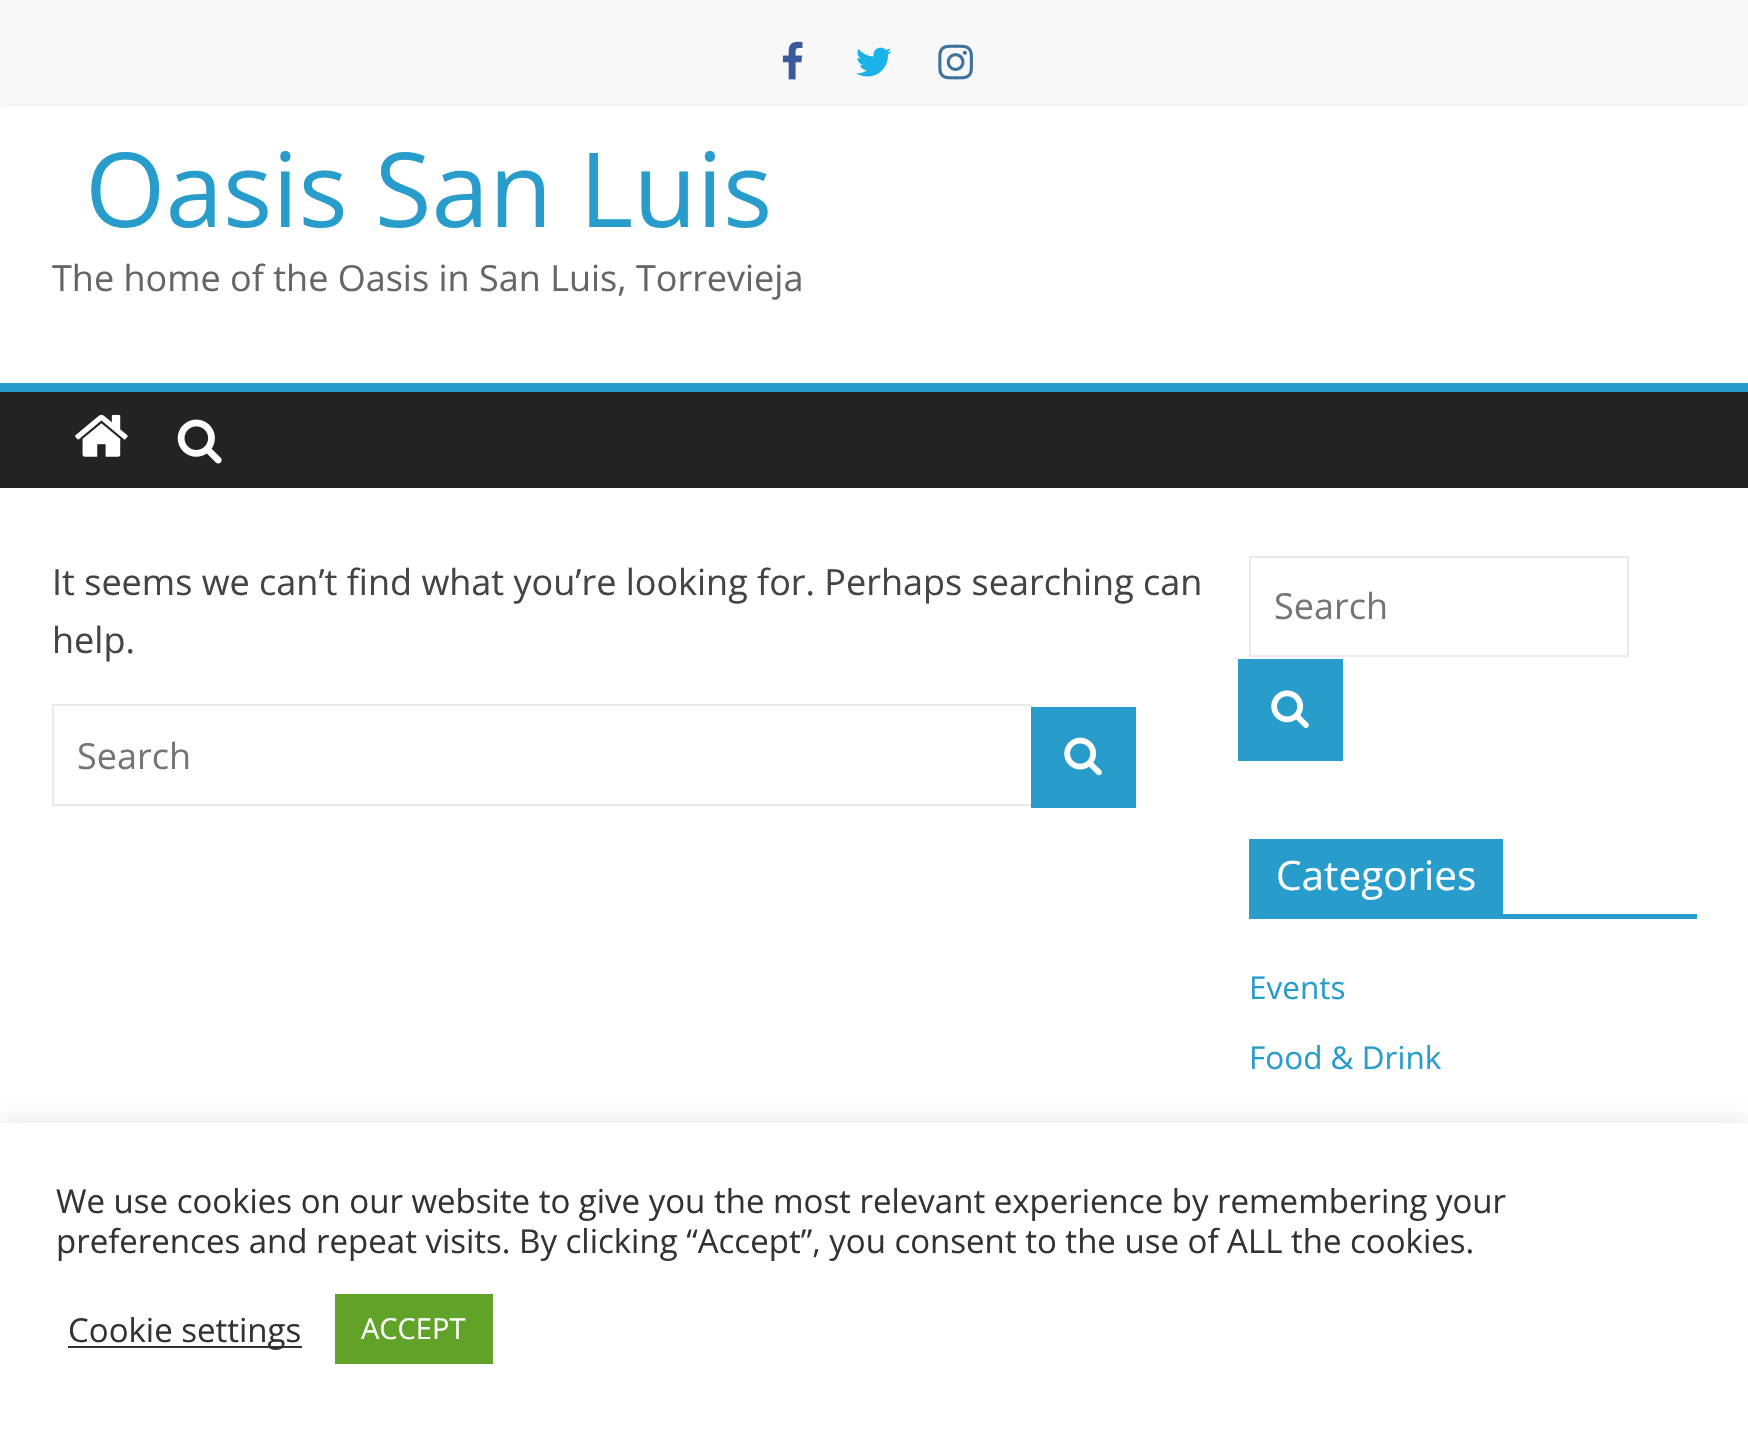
#include "include/core/SkBlurTypes.h"
#include "include/core/SkCanvas.h"
#include "include/core/SkData.h"
#include "include/core/SkFont.h"
#include "include/core/SkFontMgr.h"
#include "include/core/SkImage.h"
#include "include/core/SkMaskFilter.h"
#include "include/core/SkPaint.h"
#include "include/core/SkPathBuilder.h"
#include "include/core/SkTextBlob.h"
#include "include/effects/SkDashPathEffect.h"
#include "include/effects/SkGradientShader.h"
#include "include/utils/SkParsePath.h"

extern sk_sp<SkFontMgr> fontMgr;

static SkFont font(const char* family, int weight, float size, bool italic = false) {
    SkFontStyle style(weight, SkFontStyle::kNormal_Width,
        italic ? SkFontStyle::kItalic_Slant : SkFontStyle::kUpright_Slant);
    SkFont result(fontMgr->matchFamilyStyle(family, style), size);
    result.setSubpixel(true);
    return result;
}

static void drawLabel(SkCanvas* canvas, const char* s, float x, float y, const SkFont& font, SkColor color) {
    SkPaint ink(SkColor4f::FromColor(color));
    ink.setAntiAlias(true);
    canvas->drawString(s, x, y, font, ink);
}

static void fillRect(SkCanvas* canvas, float x, float y, float w, float h, SkColor color) {
    SkPaint ink(SkColor4f::FromColor(color));
    ink.setAntiAlias(true);
    canvas->drawRect(SkRect::MakeXYWH(x, y, w, h), ink);
}

static void drawPhoto(SkCanvas* canvas, const char* path, float x, float y, float w, float h) {
    auto image = SkImages::DeferredFromEncodedData(SkData::MakeFromFileName(path));
    canvas->drawImageRect(image, SkRect::MakeXYWH(x, y, w, h), SkSamplingOptions());
}

void draw(SkCanvas* canvas) {
    SkPaint paint;
    paint.setAntiAlias(true);
    canvas->clear(0xFFFFFFFF);
    paint.setColor(0x1A000000);
    paint.setMaskFilter(SkMaskFilter::MakeBlur(kNormal_SkBlurStyle, 2));
    canvas->drawRect(SkRect::MakeXYWH(0, 0, 1748, 104), paint);
    paint.setMaskFilter(nullptr);
    fillRect(canvas, 0, 0, 1748, 104, 0xFFF8F8F8);
    drawPhoto(canvas, "assets/img1.png", 782, 41, 21, 39);
    drawPhoto(canvas, "assets/img2.png", 856, 47, 36, 30);
    drawPhoto(canvas, "assets/img3.png", 938, 44, 35, 36);
    SkFont font1 = font("Open Sans", 400, 103.5f);
    drawLabel(canvas, "Oasis San Luis", 85, 227, font1, 0xFF289DCC);
    SkFont font2 = font("Open Sans", 400, 36);
    drawLabel(canvas, "The home of the Oasis in San Luis, Torrevieja", 52, 291, font2, 0xFF666666);
    fillRect(canvas, 0, 392, 1748, 96, 0xFF232323);
    fillRect(canvas, 0, 383, 1748, 9, 0xFF289DCC);
    drawPhoto(canvas, "assets/img4.png", 75, 414, 53, 43);
    drawPhoto(canvas, "assets/img5.png", 177, 419, 45, 45);
    drawLabel(canvas, "It seems we can’t find what you’re looking for. Perhaps searching can", 52, 595, font2, 0xFF444444);
    drawLabel(canvas, "help.", 52, 653, font2, 0xFF444444);
    paint.setStroke(true);
    paint.setStrokeWidth(2);
    paint.setColor(0xFFEAEAEA);
    canvas->drawRect(SkRect::MakeXYWH(53, 705, 979, 100), paint);
    drawLabel(canvas, "Search", 77, 769, font2, 0xFF757575);
    fillRect(canvas, 1031, 707, 105, 101, 0xFF289DCC);
    drawPhoto(canvas, "assets/img6.png", 1064, 737, 38, 39);
    canvas->drawRect(SkRect::MakeXYWH(1250, 557, 378, 99), paint);
    drawLabel(canvas, "Search", 1274, 619, font2, 0xFF757575);
    fillRect(canvas, 1238, 659, 105, 102, 0xFF289DCC);
    drawPhoto(canvas, "assets/img7.png", 1271, 690, 38, 38);
    fillRect(canvas, 1249, 914, 448, 5, 0xFF289DCC);
    fillRect(canvas, 1249, 839, 254, 75, 0xFF289DCC);
    SkFont font3 = font("Open Sans", 400, 40.5f);
    drawLabel(canvas, "Categories", 1276, 890, font3, 0xFFFFFFFF);
    SkFont font4 = font("Open Sans", 400, 31.5f);
    drawLabel(canvas, "Events", 1249, 999, font4, 0xFF289DCC);
    drawLabel(canvas, "Food & Drink", 1249, 1069, font4, 0xFF289DCC);
    paint.setStroke(false);
    paint.setColor(0x4DACABAB);
    paint.setMaskFilter(SkMaskFilter::MakeBlur(kNormal_SkBlurStyle, 11));
    canvas->drawRect(SkRect::MakeXYWH(0, 1121, 1748, 308), paint);
    paint.setMaskFilter(nullptr);
    fillRect(canvas, 0, 1123, 1748, 308, 0xFFFFFFFF);
    SkFont font5 = font("Open Sans", 400, 33);
    drawLabel(canvas, "We use cookies on our website to give you the most relevant experience by remembering your", 56, 1213, font5, 0xFF333333);
    drawLabel(canvas, "preferences and repeat visits. By clicking “Accept”, you consent to the use of ALL the cookies.", 56, 1253, font5, 0xFF333333);
    fillRect(canvas, 68, 1346, 234, 2, 0xFF333333);
    drawLabel(canvas, "Cookie settings", 68, 1342, font5, 0xFF333333);
    fillRect(canvas, 335, 1294, 158, 70, 0xFF61A229);
    SkFont font6 = font("Open Sans", 400, 29);
    drawLabel(canvas, "ACCEPT", 361, 1339, font6, 0xFFFFFFFF);
}
